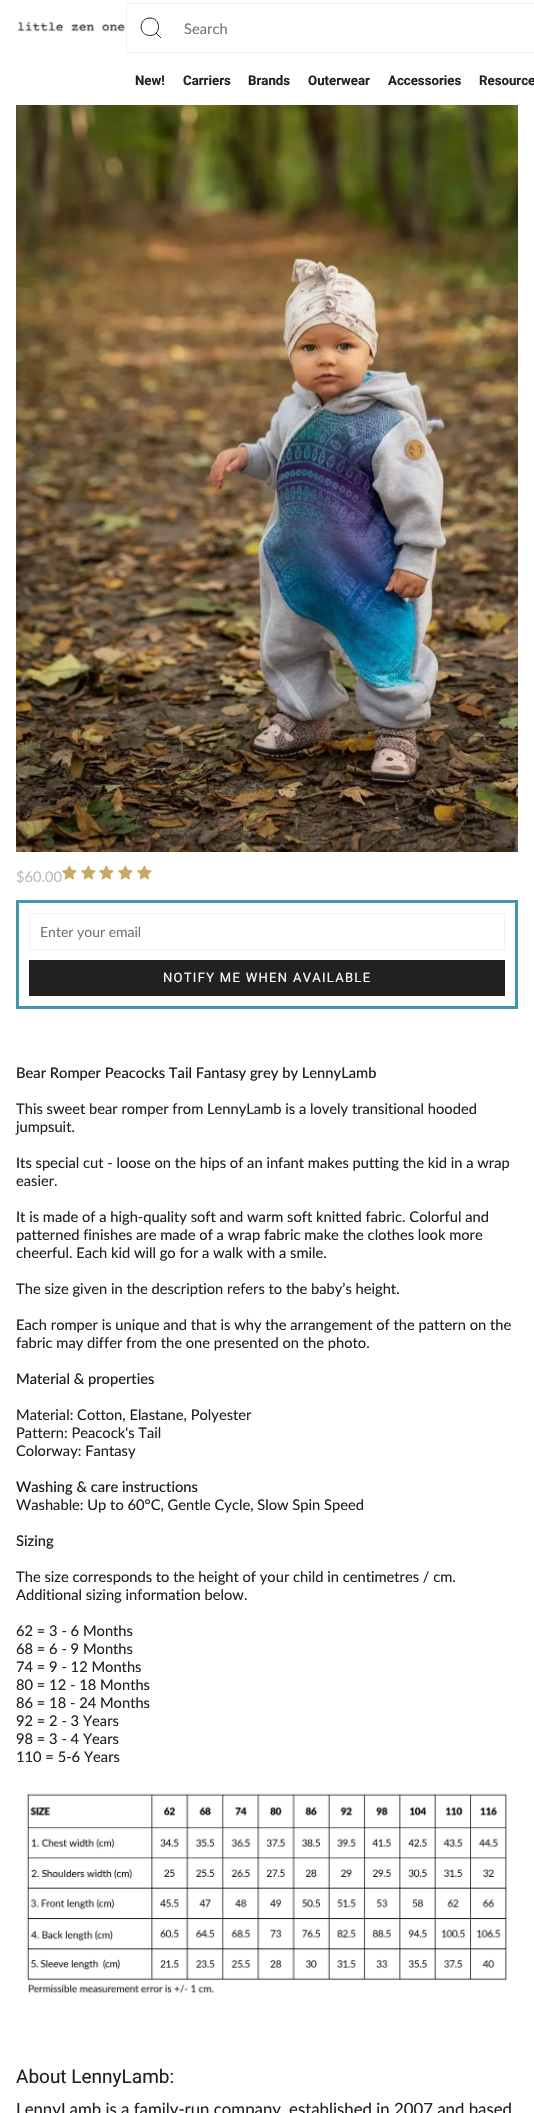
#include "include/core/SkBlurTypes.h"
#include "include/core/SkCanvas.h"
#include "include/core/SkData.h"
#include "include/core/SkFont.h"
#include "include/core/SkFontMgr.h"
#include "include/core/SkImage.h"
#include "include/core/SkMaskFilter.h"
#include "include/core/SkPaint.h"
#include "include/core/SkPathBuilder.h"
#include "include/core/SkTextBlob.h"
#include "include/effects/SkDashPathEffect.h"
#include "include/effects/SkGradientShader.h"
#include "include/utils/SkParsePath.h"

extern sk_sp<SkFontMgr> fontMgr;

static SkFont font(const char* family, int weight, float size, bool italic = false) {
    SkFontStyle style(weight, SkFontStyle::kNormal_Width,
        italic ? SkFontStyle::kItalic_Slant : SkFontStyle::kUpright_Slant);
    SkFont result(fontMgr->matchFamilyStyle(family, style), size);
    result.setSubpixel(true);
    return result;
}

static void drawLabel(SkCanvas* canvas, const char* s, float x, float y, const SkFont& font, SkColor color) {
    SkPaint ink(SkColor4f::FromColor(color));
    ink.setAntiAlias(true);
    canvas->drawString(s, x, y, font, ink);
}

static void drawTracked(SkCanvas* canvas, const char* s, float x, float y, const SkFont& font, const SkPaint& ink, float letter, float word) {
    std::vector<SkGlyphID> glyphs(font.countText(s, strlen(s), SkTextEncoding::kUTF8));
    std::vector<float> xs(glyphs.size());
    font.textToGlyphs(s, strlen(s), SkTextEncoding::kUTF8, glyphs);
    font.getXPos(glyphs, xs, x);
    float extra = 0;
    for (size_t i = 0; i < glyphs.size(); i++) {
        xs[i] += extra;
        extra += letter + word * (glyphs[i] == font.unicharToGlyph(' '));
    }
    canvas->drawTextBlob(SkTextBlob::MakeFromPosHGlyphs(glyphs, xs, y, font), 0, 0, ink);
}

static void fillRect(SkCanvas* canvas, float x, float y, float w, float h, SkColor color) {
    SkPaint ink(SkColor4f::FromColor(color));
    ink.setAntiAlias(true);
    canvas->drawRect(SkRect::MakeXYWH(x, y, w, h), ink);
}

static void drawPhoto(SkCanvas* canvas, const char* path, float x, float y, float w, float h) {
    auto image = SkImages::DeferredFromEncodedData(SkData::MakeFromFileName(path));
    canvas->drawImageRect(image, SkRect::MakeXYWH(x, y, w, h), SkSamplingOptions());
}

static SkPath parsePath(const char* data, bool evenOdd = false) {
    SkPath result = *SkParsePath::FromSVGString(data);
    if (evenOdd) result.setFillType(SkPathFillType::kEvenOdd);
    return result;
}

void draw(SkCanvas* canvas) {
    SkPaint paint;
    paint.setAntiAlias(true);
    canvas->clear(0xFFFFFFFF);
    drawPhoto(canvas, "assets/img1.png", 17, 21, 108, 11);
    paint.setStroke(true);
    paint.setStrokeWidth(1);
    paint.setColor(0xFFF0F0F0);
    canvas->drawRect(SkRect::MakeXYWH(126.5f, 3.5f, 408, 49), paint);
    paint.setColor(0xFF212121);
    canvas->drawPath(parsePath("M150 18C161.5 18 161.5 36 149.5 35.5C138 35 138.5 18 150 18ZM156 33L161 38"), paint);
    SkFont font1 = font("Lato", 400, 14.7f);
    drawLabel(canvas, "Search", 184, 34, font1, 0xFF757575);
    SkFont font2 = font("Roboto", 700, 13.25f);
    drawLabel(canvas, "New!", 135, 85, font2, 0xFF212121);
    drawLabel(canvas, "Carriers", 183, 85, font2, 0xFF212121);
    drawLabel(canvas, "Brands", 248, 85, font2, 0xFF212121);
    drawLabel(canvas, "Outerwear", 308, 85, font2, 0xFF212121);
    drawLabel(canvas, "Accessories", 388, 85, font2, 0xFF212121);
    drawLabel(canvas, "Resource", 479, 85, font2, 0xFF212121);
    drawPhoto(canvas, "assets/img2.png", 16, 105, 502, 747);
    drawLabel(canvas, "$60.00", 16, 882, font1, 0xFFBCBCBC);
    drawPhoto(canvas, "assets/img3.png", 62, 865, 15, 15);
    drawPhoto(canvas, "assets/img3.png", 81, 865, 15, 15);
    drawPhoto(canvas, "assets/img3.png", 99, 865, 15, 15);
    drawPhoto(canvas, "assets/img3.png", 118, 865, 15, 15);
    drawPhoto(canvas, "assets/img3.png", 137, 865, 15, 15);
    paint.setStrokeWidth(3);
    paint.setColor(0xFF4196AB);
    canvas->drawRect(SkRect::MakeXYWH(17.5f, 901.5f, 499, 106), paint);
    paint.setStrokeWidth(1);
    paint.setColor(0xFFF0F0F0);
    canvas->drawRect(SkRect::MakeXYWH(29.5f, 913.5f, 475, 36), paint);
    SkFont font3 = font("Lato", 400, 14);
    drawLabel(canvas, "Enter your email", 40, 937, font3, 0xFF757575);
    fillRect(canvas, 29, 960, 476, 36, 0xFF212121);
    SkFont font4 = font("Roboto", 400, 13);
    paint.setStroke(false);
    paint.setColor(0xFFFFFFFF);
    drawTracked(canvas, "NOTIFY ME WHEN AVAILABLE", 163, 982, font4, paint, 1.3f, 0);
    SkFont font5 = font("Lato", 500, 14.7f);
    drawLabel(canvas, "Bear Romper Peacocks Tail Fantasy grey by LennyLamb", 16, 1078, font5, 0xFF212121);
    drawLabel(canvas, "This sweet bear romper from LennyLamb is a lovely transitional hooded", 16, 1114, font1, 0xFF212121);
    drawLabel(canvas, "jumpsuit.", 16, 1132, font1, 0xFF212121);
    drawLabel(canvas, "Its special cut - loose on the hips of an infant makes putting the kid in a wrap", 16, 1168, font1, 0xFF212121);
    drawLabel(canvas, "easier.", 16, 1186, font1, 0xFF212121);
    drawLabel(canvas, "It is made of a high-quality soft and warm soft knitted fabric. Colorful and", 16, 1222, font1, 0xFF212121);
    drawLabel(canvas, "patterned finishes are made of a wrap fabric make the clothes look more", 16, 1240, font1, 0xFF212121);
    drawLabel(canvas, "cheerful. Each kid will go for a walk with a smile.", 16, 1258, font1, 0xFF212121);
    drawLabel(canvas, "The size given in the description refers to the baby’s height.", 16, 1294, font1, 0xFF212121);
    drawLabel(canvas, "Each romper is unique and that is why the arrangement of the pattern on the", 16, 1330, font1, 0xFF212121);
    drawLabel(canvas, "fabric may differ from the one presented on the photo.", 16, 1348, font1, 0xFF212121);
    drawLabel(canvas, "Material & properties", 16, 1384, font5, 0xFF212121);
    drawLabel(canvas, "Material: Cotton, Elastane, Polyester", 16, 1420, font1, 0xFF212121);
    drawLabel(canvas, "Pattern: Peacock's Tail", 16, 1438, font1, 0xFF212121);
    drawLabel(canvas, "Colorway: Fantasy", 16, 1456, font1, 0xFF212121);
    drawLabel(canvas, "Washing & care instructions", 16, 1492, font5, 0xFF212121);
    drawLabel(canvas, "Washable: Up to 60°C, Gentle Cycle, Slow Spin Speed", 16, 1510, font1, 0xFF212121);
    drawLabel(canvas, "Sizing", 16, 1546, font5, 0xFF212121);
    drawLabel(canvas, "The size corresponds to the height of your child in centimetres / cm.", 16, 1582, font1, 0xFF212121);
    drawLabel(canvas, "Additional sizing information below.", 16, 1600, font1, 0xFF212121);
    drawLabel(canvas, "62 = 3 - 6 Months", 16, 1636, font1, 0xFF212121);
    drawLabel(canvas, "68 = 6 - 9 Months", 16, 1654, font1, 0xFF212121);
    drawLabel(canvas, "74 = 9 - 12 Months", 16, 1672, font1, 0xFF212121);
    drawLabel(canvas, "80 = 12 - 18 Months", 16, 1690, font1, 0xFF212121);
    drawLabel(canvas, "86 = 18 - 24 Months", 16, 1708, font1, 0xFF212121);
    drawLabel(canvas, "92 = 2 - 3 Years", 16, 1726, font1, 0xFF212121);
    drawLabel(canvas, "98 = 3 - 4 Years", 16, 1744, font1, 0xFF212121);
    drawLabel(canvas, "110 = 5-6 Years", 16, 1762, font1, 0xFF212121);
    drawPhoto(canvas, "assets/img4.png", 26, 1793, 482, 201);
    SkFont font6 = font("Roboto", 400, 19);
    drawLabel(canvas, "About LennyLamb:", 16, 2083, font6, 0xFF212121);
    SkFont font7 = font("Lato", 400, 16.8f);
    drawLabel(canvas, "LennyLamb is a family-run company, established in 2007 and based", 16, 2115, font7, 0xFF212121);
}
